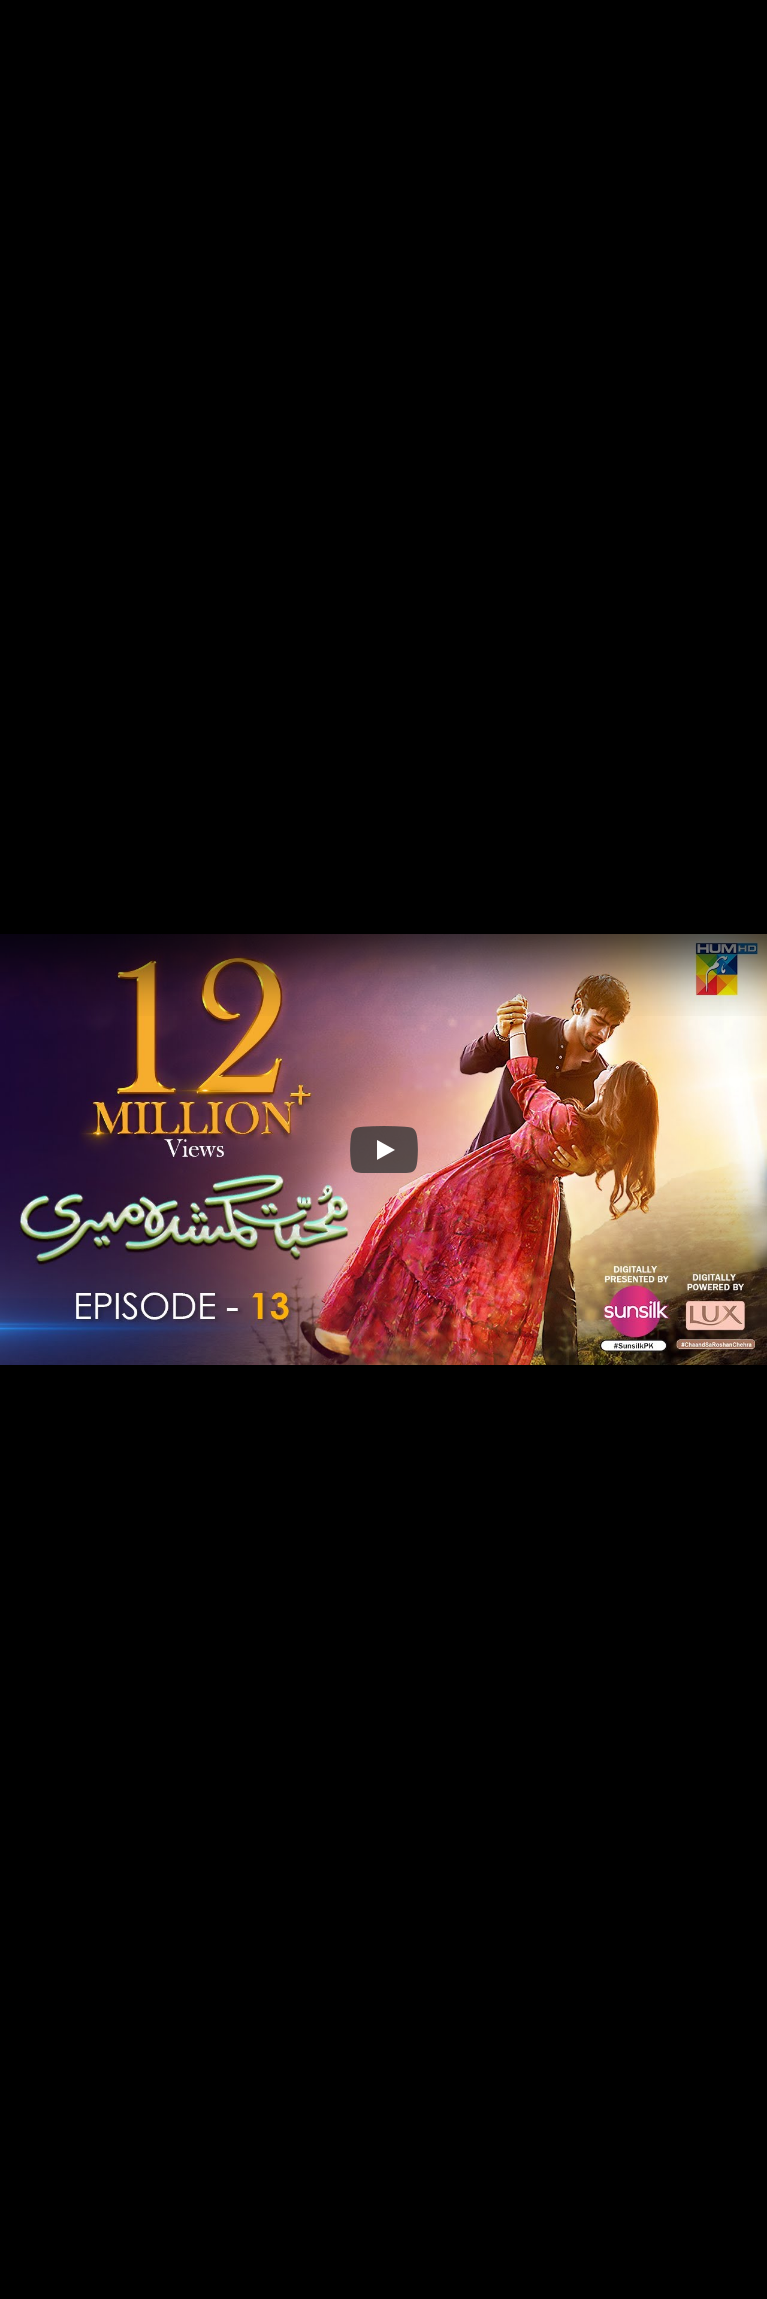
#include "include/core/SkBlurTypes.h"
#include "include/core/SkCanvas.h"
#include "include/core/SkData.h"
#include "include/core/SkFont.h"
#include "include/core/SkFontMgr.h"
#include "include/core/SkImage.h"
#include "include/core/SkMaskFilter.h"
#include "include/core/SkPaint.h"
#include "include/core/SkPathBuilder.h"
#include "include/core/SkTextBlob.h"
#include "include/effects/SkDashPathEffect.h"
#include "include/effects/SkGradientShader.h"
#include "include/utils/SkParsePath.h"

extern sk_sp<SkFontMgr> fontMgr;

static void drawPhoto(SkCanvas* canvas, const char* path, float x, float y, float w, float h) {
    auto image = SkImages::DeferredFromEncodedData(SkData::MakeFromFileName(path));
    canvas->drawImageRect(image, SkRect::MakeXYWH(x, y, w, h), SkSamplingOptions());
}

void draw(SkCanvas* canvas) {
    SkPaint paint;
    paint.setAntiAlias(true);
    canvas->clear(0xFF000000);
    drawPhoto(canvas, "assets/img1.png", 0, 934, 767, 431);
    drawPhoto(canvas, "assets/img2.png", 0, 934, 767, 82);
    drawPhoto(canvas, "assets/img3.png", 350, 1126, 68, 47);
}
